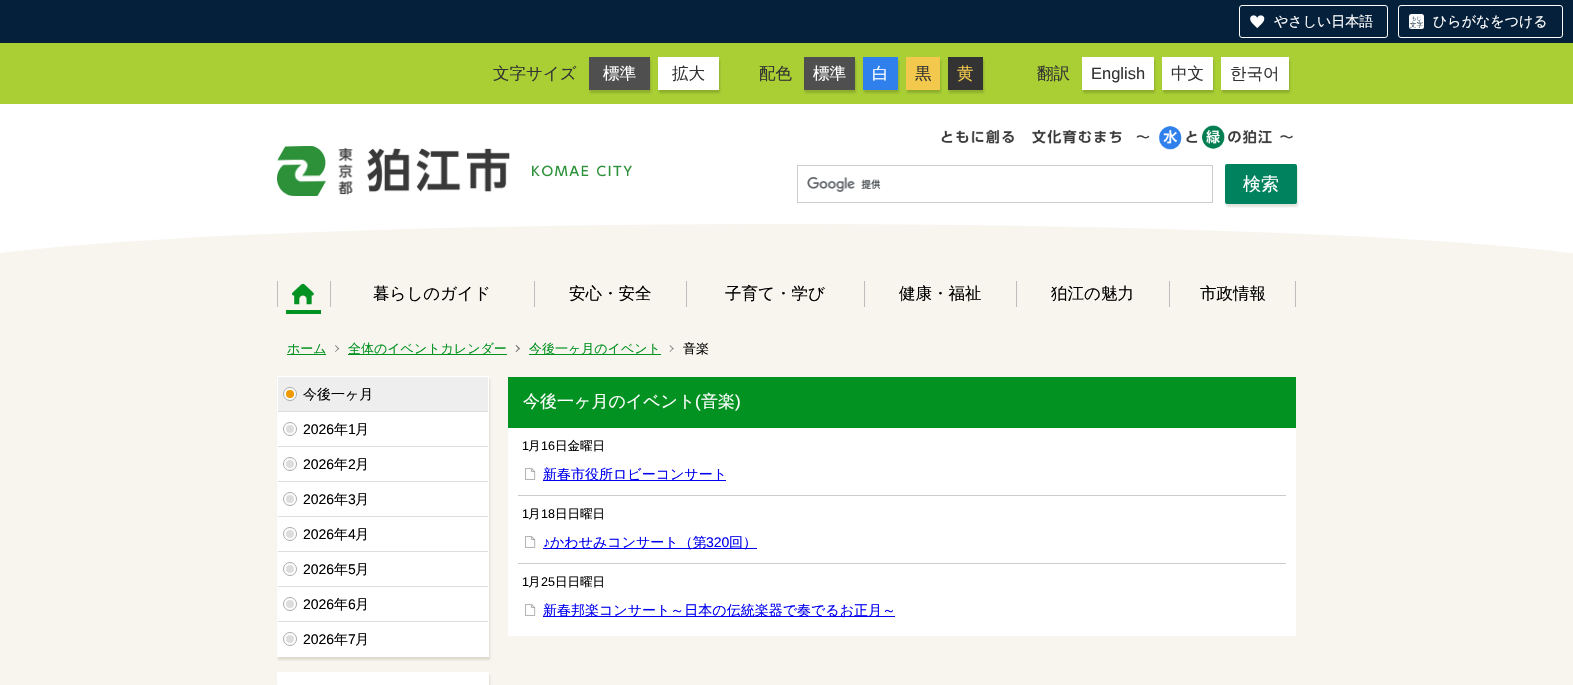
#include "include/core/SkBlurTypes.h"
#include "include/core/SkCanvas.h"
#include "include/core/SkData.h"
#include "include/core/SkFont.h"
#include "include/core/SkFontMgr.h"
#include "include/core/SkImage.h"
#include "include/core/SkMaskFilter.h"
#include "include/core/SkPaint.h"
#include "include/core/SkPathBuilder.h"
#include "include/core/SkTextBlob.h"
#include "include/effects/SkDashPathEffect.h"
#include "include/effects/SkGradientShader.h"
#include "include/utils/SkParsePath.h"

extern sk_sp<SkFontMgr> fontMgr;

static SkFont font(const char* family, int weight, float size, bool italic = false) {
    SkFontStyle style(weight, SkFontStyle::kNormal_Width,
        italic ? SkFontStyle::kItalic_Slant : SkFontStyle::kUpright_Slant);
    SkFont result(fontMgr->matchFamilyStyle(family, style), size);
    result.setSubpixel(true);
    return result;
}

static void drawLabel(SkCanvas* canvas, const char* s, float x, float y, const SkFont& font, SkColor color) {
    SkPaint ink(SkColor4f::FromColor(color));
    ink.setAntiAlias(true);
    canvas->drawString(s, x, y, font, ink);
}

static void fillRect(SkCanvas* canvas, float x, float y, float w, float h, SkColor color) {
    SkPaint ink(SkColor4f::FromColor(color));
    ink.setAntiAlias(true);
    canvas->drawRect(SkRect::MakeXYWH(x, y, w, h), ink);
}

static void fillRRect(SkCanvas* canvas, float x, float y, float w, float h, float radius, SkColor color) {
    SkPaint ink(SkColor4f::FromColor(color));
    ink.setAntiAlias(true);
    canvas->drawRoundRect(SkRect::MakeXYWH(x, y, w, h), radius, radius, ink);
}

static void drawPhoto(SkCanvas* canvas, const char* path, float x, float y, float w, float h) {
    auto image = SkImages::DeferredFromEncodedData(SkData::MakeFromFileName(path));
    canvas->drawImageRect(image, SkRect::MakeXYWH(x, y, w, h), SkSamplingOptions());
}

static SkPath parsePath(const char* data, bool evenOdd = false) {
    SkPath result = *SkParsePath::FromSVGString(data);
    if (evenOdd) result.setFillType(SkPathFillType::kEvenOdd);
    return result;
}

void draw(SkCanvas* canvas) {
    SkPaint paint;
    paint.setAntiAlias(true);
    canvas->clear(0xFFFFFFFF);
    fillRect(canvas, 0, 0, 1573, 43, 0xFF05203A);
    drawPhoto(canvas, "assets/img1.png", 1250, 15, 15, 13);
    paint.setStroke(true);
    paint.setStrokeWidth(1);
    paint.setColor(0xFFFFFFFF);
    canvas->drawRoundRect(SkRect::MakeXYWH(1239.5f, 5.5f, 148, 32), 2.5f, 2.5f, paint);
    SkFont font1 = font("WenQuanYi Zen Hei", 500, 14);
    drawLabel(canvas, "やさしい日本語", 1274, 26, font1, 0xFFFFFFFF);
    drawPhoto(canvas, "assets/img2.png", 1409, 14, 15, 15);
    canvas->drawRoundRect(SkRect::MakeXYWH(1398.5f, 5.5f, 164, 32), 2.5f, 2.5f, paint);
    drawLabel(canvas, "ひらがなをつける", 1433, 26, font1, 0xFFFFFFFF);
    fillRect(canvas, 0, 43, 1573, 61, 0xFFA9CF34);
    SkFont font2 = font("WenQuanYi Zen Hei", 500, 16.5f);
    drawLabel(canvas, "文字サイズ", 493, 79, font2, 0xFF333333);
    paint.setStroke(false);
    paint.setColor(0x403A4D13);
    paint.setMaskFilter(SkMaskFilter::MakeBlur(kNormal_SkBlurStyle, 1));
    canvas->drawRect(SkRect::MakeXYWH(590, 60, 61, 33), paint);
    paint.setMaskFilter(nullptr);
    fillRect(canvas, 589, 57, 61, 33, 0xFF4F4F4F);
    drawLabel(canvas, "標準", 603, 79, font2, 0xFFFFFFFF);
    paint.setMaskFilter(SkMaskFilter::MakeBlur(kNormal_SkBlurStyle, 1));
    canvas->drawRect(SkRect::MakeXYWH(659, 60, 61, 33), paint);
    paint.setMaskFilter(nullptr);
    fillRect(canvas, 658, 57, 61, 33, 0xFFFFFFFF);
    drawLabel(canvas, "拡大", 672, 79, font2, 0xFF333333);
    drawLabel(canvas, "配色", 759, 79, font2, 0xFF333333);
    paint.setMaskFilter(SkMaskFilter::MakeBlur(kNormal_SkBlurStyle, 1));
    canvas->drawRect(SkRect::MakeXYWH(805, 60, 51, 33), paint);
    paint.setMaskFilter(nullptr);
    fillRect(canvas, 804, 57, 51, 33, 0xFF4F4F4F);
    drawLabel(canvas, "標準", 813, 79, font2, 0xFFFFFFFF);
    paint.setMaskFilter(SkMaskFilter::MakeBlur(kNormal_SkBlurStyle, 1));
    canvas->drawRect(SkRect::MakeXYWH(864, 60, 35, 33), paint);
    paint.setMaskFilter(nullptr);
    fillRect(canvas, 863, 57, 35, 33, 0xFF2F80ED);
    drawLabel(canvas, "白", 872, 79, font2, 0xFFFFFFFF);
    paint.setMaskFilter(SkMaskFilter::MakeBlur(kNormal_SkBlurStyle, 1));
    canvas->drawRect(SkRect::MakeXYWH(907, 60, 34, 33), paint);
    paint.setMaskFilter(nullptr);
    fillRect(canvas, 906, 57, 34, 33, 0xFFF2C94C);
    drawLabel(canvas, "黒", 915, 79, font2, 0xFF333333);
    paint.setMaskFilter(SkMaskFilter::MakeBlur(kNormal_SkBlurStyle, 1));
    canvas->drawRect(SkRect::MakeXYWH(949, 60, 35, 33), paint);
    paint.setMaskFilter(nullptr);
    fillRect(canvas, 948, 57, 35, 33, 0xFF333333);
    drawLabel(canvas, "黄", 957, 79, font2, 0xFFF2C94C);
    drawLabel(canvas, "翻訳", 1037, 79, font2, 0xFF333333);
    paint.setMaskFilter(SkMaskFilter::MakeBlur(kNormal_SkBlurStyle, 1));
    canvas->drawRect(SkRect::MakeXYWH(1083, 60, 72, 33), paint);
    paint.setMaskFilter(nullptr);
    fillRect(canvas, 1082, 57, 72, 33, 0xFFFFFFFF);
    SkFont font3 = font("Liberation Sans", 400, 16.5f);
    drawLabel(canvas, "English", 1091, 79, font3, 0xFF333333);
    paint.setMaskFilter(SkMaskFilter::MakeBlur(kNormal_SkBlurStyle, 1));
    canvas->drawRect(SkRect::MakeXYWH(1163, 60, 51, 33), paint);
    paint.setMaskFilter(nullptr);
    fillRect(canvas, 1162, 57, 51, 33, 0xFFFFFFFF);
    drawLabel(canvas, "中文", 1171, 79, font2, 0xFF333333);
    paint.setMaskFilter(SkMaskFilter::MakeBlur(kNormal_SkBlurStyle, 1));
    canvas->drawRect(SkRect::MakeXYWH(1222, 60, 68, 33), paint);
    paint.setMaskFilter(nullptr);
    fillRect(canvas, 1221, 57, 68, 33, 0xFFFFFFFF);
    drawLabel(canvas, "한국어", 1230, 79, font2, 0xFF333333);
    drawPhoto(canvas, "assets/img3.png", 941, 125, 352, 25);
    drawPhoto(canvas, "assets/img4.png", 277, 146, 233, 50);
    drawPhoto(canvas, "assets/img5.png", 532, 165, 100, 12);
    paint.setStroke(true);
    paint.setColor(0xFFCCCCCC);
    canvas->drawRect(SkRect::MakeXYWH(797.5f, 165.5f, 415, 37), paint);
    drawPhoto(canvas, "assets/img6.png", 807, 177, 74, 15);
    paint.setStroke(false);
    paint.setColor(0x263A4D13);
    paint.setMaskFilter(SkMaskFilter::MakeBlur(kNormal_SkBlurStyle, 1));
    canvas->drawRoundRect(SkRect::MakeXYWH(1226, 167, 72, 40), 2, 2, paint);
    paint.setMaskFilter(nullptr);
    fillRRect(canvas, 1225, 164, 72, 40, 2, 0xFF00825F);
    SkFont font4 = font("WenQuanYi Zen Hei", 500, 18);
    drawLabel(canvas, "検索", 1243, 190, font4, 0xFFFFFFFF);
    paint.setColor(0xFFF8F5EE);
    canvas->drawOval(SkRect::MakeXYWH(-79, 224, 1730, 100), paint);
    fillRect(canvas, 0, 294, 1573, 391, 0xFFF8F5EE);
    fillRect(canvas, 277, 281, 1, 26, 0xFFBDBDBD);
    drawPhoto(canvas, "assets/img7.png", 292, 283, 22, 22);
    fillRect(canvas, 286, 310, 35, 4, 0xFF029221);
    fillRect(canvas, 330, 281, 1, 26, 0xFFBDBDBD);
    drawLabel(canvas, "暮らしのガイド", 373, 299, font2, 0xFF000000);
    fillRect(canvas, 534, 281, 1, 26, 0xFFBDBDBD);
    drawLabel(canvas, "安心・安全", 569, 299, font2, 0xFF000000);
    fillRect(canvas, 686, 281, 1, 26, 0xFFBDBDBD);
    drawLabel(canvas, "子育て・学び", 725, 299, font2, 0xFF000000);
    fillRect(canvas, 864, 281, 1, 26, 0xFFBDBDBD);
    drawLabel(canvas, "健康・福祉", 899, 299, font2, 0xFF000000);
    fillRect(canvas, 1016, 281, 1, 26, 0xFFBDBDBD);
    drawLabel(canvas, "狛江の魅力", 1051, 299, font2, 0xFF000000);
    fillRect(canvas, 1169, 281, 1, 26, 0xFFBDBDBD);
    drawLabel(canvas, "市政情報", 1200, 299, font2, 0xFF000000);
    fillRect(canvas, 1295, 281, 1, 26, 0xFFBDBDBD);
    fillRect(canvas, 287, 354, 39, 1, 0xFF029221);
    SkFont font5 = font("WenQuanYi Zen Hei", 500, 13);
    drawLabel(canvas, "ホーム", 287, 353, font5, 0xFF029221);
    paint.setColor(0xFF777777);
    canvas->drawPath(parsePath("M335.5 345L339 348.5L338.5 349.5L335 345.5Z"), paint);
    canvas->drawPath(parsePath("M338.5 348L339 348.5L335.5 352L335 351.5Z"), paint);
    fillRect(canvas, 348, 354, 159, 1, 0xFF029221);
    drawLabel(canvas, "全体のイベントカレンダー", 348, 353, font5, 0xFF029221);
    canvas->drawPath(parsePath("M516.5 345L520 348.5L519 349.5L515.5 345.5Z"), paint);
    canvas->drawPath(parsePath("M519 348L520 348.5L516.5 352L515.5 351.5Z"), paint);
    fillRect(canvas, 529, 354, 132, 1, 0xFF029221);
    drawLabel(canvas, "今後一ヶ月のイベント", 529, 353, font5, 0xFF029221);
    canvas->drawPath(parsePath("M670 345L673.5 348.5L673 349.5L669.5 345.5Z"), paint);
    canvas->drawPath(parsePath("M673 348L673.5 348.5L670 352L669.5 351.5Z"), paint);
    drawLabel(canvas, "音楽", 683, 353, font5, 0xFF000000);
    paint.setColor(0x263A4D13);
    paint.setMaskFilter(SkMaskFilter::MakeBlur(kNormal_SkBlurStyle, 1));
    canvas->drawRect(SkRect::MakeXYWH(278, 379, 212, 281), paint);
    paint.setMaskFilter(nullptr);
    fillRect(canvas, 277, 376, 212, 281, 0xFFFFFFFF);
    fillRect(canvas, 278, 377, 210, 34, 0xFFEEEEEE);
    paint.setColor(0xFFFFFFFF);
    canvas->drawCircle(290, 394, 6.5f, paint);
    paint.setStroke(true);
    paint.setColor(0xFFAAAAAA);
    canvas->drawCircle(290, 394, 6.5f, paint);
    drawLabel(canvas, "今後一ヶ月", 303, 399, font1, 0xFF000000);
    paint.setStroke(false);
    paint.setColor(0xFFEE9900);
    canvas->drawCircle(290, 394, 4, paint);
    fillRect(canvas, 278, 411, 210, 1, 0xFFDDDDDD);
    paint.setStroke(true);
    paint.setColor(0xFFAAAAAA);
    canvas->drawCircle(290, 429, 6.5f, paint);
    SkFont font6 = font("Liberation Sans", 400, 14);
    drawLabel(canvas, "2026", 303, 434, font6, 0xFF000000);
    drawLabel(canvas, "年", 334, 434, font1, 0xFF000000);
    drawLabel(canvas, "1", 348, 434, font6, 0xFF000000);
    drawLabel(canvas, "月", 355, 434, font1, 0xFF000000);
    paint.setStroke(false);
    paint.setColor(0xFFDDDDDD);
    canvas->drawCircle(290, 429, 4, paint);
    fillRect(canvas, 278, 446, 210, 1, 0xFFDDDDDD);
    paint.setStroke(true);
    paint.setColor(0xFFAAAAAA);
    canvas->drawCircle(290, 464, 6.5f, paint);
    drawLabel(canvas, "2026", 303, 469, font6, 0xFF000000);
    drawLabel(canvas, "年", 334, 469, font1, 0xFF000000);
    drawLabel(canvas, "2", 348, 469, font6, 0xFF000000);
    drawLabel(canvas, "月", 355, 469, font1, 0xFF000000);
    paint.setStroke(false);
    paint.setColor(0xFFDDDDDD);
    canvas->drawCircle(290, 464, 4, paint);
    fillRect(canvas, 278, 481, 210, 1, 0xFFDDDDDD);
    paint.setStroke(true);
    paint.setColor(0xFFAAAAAA);
    canvas->drawCircle(290, 499, 6.5f, paint);
    drawLabel(canvas, "2026", 303, 504, font6, 0xFF000000);
    drawLabel(canvas, "年", 334, 504, font1, 0xFF000000);
    drawLabel(canvas, "3", 348, 504, font6, 0xFF000000);
    drawLabel(canvas, "月", 355, 504, font1, 0xFF000000);
    paint.setStroke(false);
    paint.setColor(0xFFDDDDDD);
    canvas->drawCircle(290, 499, 4, paint);
    fillRect(canvas, 278, 516, 210, 1, 0xFFDDDDDD);
    paint.setStroke(true);
    paint.setColor(0xFFAAAAAA);
    canvas->drawCircle(290, 534, 6.5f, paint);
    drawLabel(canvas, "2026", 303, 539, font6, 0xFF000000);
    drawLabel(canvas, "年", 334, 539, font1, 0xFF000000);
    drawLabel(canvas, "4", 348, 539, font6, 0xFF000000);
    drawLabel(canvas, "月", 355, 539, font1, 0xFF000000);
    paint.setStroke(false);
    paint.setColor(0xFFDDDDDD);
    canvas->drawCircle(290, 534, 4, paint);
    fillRect(canvas, 278, 551, 210, 1, 0xFFDDDDDD);
    paint.setStroke(true);
    paint.setColor(0xFFAAAAAA);
    canvas->drawCircle(290, 569, 6.5f, paint);
    drawLabel(canvas, "2026", 303, 574, font6, 0xFF000000);
    drawLabel(canvas, "年", 334, 574, font1, 0xFF000000);
    drawLabel(canvas, "5", 348, 574, font6, 0xFF000000);
    drawLabel(canvas, "月", 355, 574, font1, 0xFF000000);
    paint.setStroke(false);
    paint.setColor(0xFFDDDDDD);
    canvas->drawCircle(290, 569, 4, paint);
    fillRect(canvas, 278, 586, 210, 1, 0xFFDDDDDD);
    paint.setStroke(true);
    paint.setColor(0xFFAAAAAA);
    canvas->drawCircle(290, 604, 6.5f, paint);
    drawLabel(canvas, "2026", 303, 609, font6, 0xFF000000);
    drawLabel(canvas, "年", 334, 609, font1, 0xFF000000);
    drawLabel(canvas, "6", 348, 609, font6, 0xFF000000);
    drawLabel(canvas, "月", 355, 609, font1, 0xFF000000);
    paint.setStroke(false);
    paint.setColor(0xFFDDDDDD);
    canvas->drawCircle(290, 604, 4, paint);
    fillRect(canvas, 278, 621, 210, 1, 0xFFDDDDDD);
    paint.setStroke(true);
    paint.setColor(0xFFAAAAAA);
    canvas->drawCircle(290, 639, 6.5f, paint);
    drawLabel(canvas, "2026", 303, 644, font6, 0xFF000000);
    drawLabel(canvas, "年", 334, 644, font1, 0xFF000000);
    drawLabel(canvas, "7", 348, 644, font6, 0xFF000000);
    drawLabel(canvas, "月", 355, 644, font1, 0xFF000000);
    paint.setStroke(false);
    paint.setColor(0xFFDDDDDD);
    canvas->drawCircle(290, 639, 4, paint);
    paint.setColor(0x263A4D13);
    paint.setMaskFilter(SkMaskFilter::MakeBlur(kNormal_SkBlurStyle, 1));
    canvas->drawRect(SkRect::MakeXYWH(278, 675, 212, 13), paint);
    paint.setMaskFilter(nullptr);
    fillRect(canvas, 277, 672, 212, 13, 0xFFFFFFFF);
    fillRect(canvas, 508, 377, 788, 51, 0xFF029221);
    SkFont font7 = font("WenQuanYi Zen Hei", 500, 17);
    drawLabel(canvas, "今後一ヶ月のイベント", 523, 407, font7, 0xFFFFFFFF);
    SkFont font8 = font("Liberation Sans", 400, 17);
    drawLabel(canvas, "(", 695, 407, font8, 0xFFFFFFFF);
    drawLabel(canvas, "音楽", 701, 407, font7, 0xFFFFFFFF);
    drawLabel(canvas, ")", 735, 407, font8, 0xFFFFFFFF);
    fillRect(canvas, 508, 428, 788, 208, 0xFFFFFFFF);
    SkFont font9 = font("Liberation Sans", 400, 12.5f);
    drawLabel(canvas, "1", 522, 450, font9, 0xFF000000);
    SkFont font10 = font("WenQuanYi Zen Hei", 500, 12.5f);
    drawLabel(canvas, "月", 528, 450, font10, 0xFF000000);
    drawLabel(canvas, "16", 541, 450, font9, 0xFF000000);
    drawLabel(canvas, "日金曜日", 555, 450, font10, 0xFF000000);
    drawPhoto(canvas, "assets/img8.png", 525, 468, 11, 12);
    fillRect(canvas, 543, 480, 183, 1, 0xFF0000EE);
    drawLabel(canvas, "新春市役所ロビーコンサート", 543, 479, font1, 0xFF0000EE);
    fillRect(canvas, 518, 495, 768, 1, 0xFFCCCCCC);
    drawLabel(canvas, "1", 522, 518, font9, 0xFF000000);
    drawLabel(canvas, "月", 528, 518, font10, 0xFF000000);
    drawLabel(canvas, "18", 541, 518, font9, 0xFF000000);
    drawLabel(canvas, "日日曜日", 555, 518, font10, 0xFF000000);
    drawPhoto(canvas, "assets/img8.png", 525, 536, 11, 12);
    drawLabel(canvas, "♪", 543, 547, font6, 0xFF0000EE);
    fillRect(canvas, 543, 548, 214, 1, 0xFF0000EE);
    drawLabel(canvas, "かわせみコンサート（第", 550, 547, font1, 0xFF0000EE);
    drawLabel(canvas, "320", 706, 547, font6, 0xFF0000EE);
    drawLabel(canvas, "回）", 729, 547, font1, 0xFF0000EE);
    fillRect(canvas, 518, 563, 768, 1, 0xFFCCCCCC);
    drawLabel(canvas, "1", 522, 586, font9, 0xFF000000);
    drawLabel(canvas, "月", 528, 586, font10, 0xFF000000);
    drawLabel(canvas, "25", 541, 586, font9, 0xFF000000);
    drawLabel(canvas, "日日曜日", 555, 586, font10, 0xFF000000);
    drawPhoto(canvas, "assets/img8.png", 525, 604, 11, 12);
    fillRect(canvas, 543, 616, 352, 1, 0xFF0000EE);
    drawLabel(canvas, "新春邦楽コンサート～日本の伝統楽器で奏でるお正月～", 543, 615, font1, 0xFF0000EE);
}
